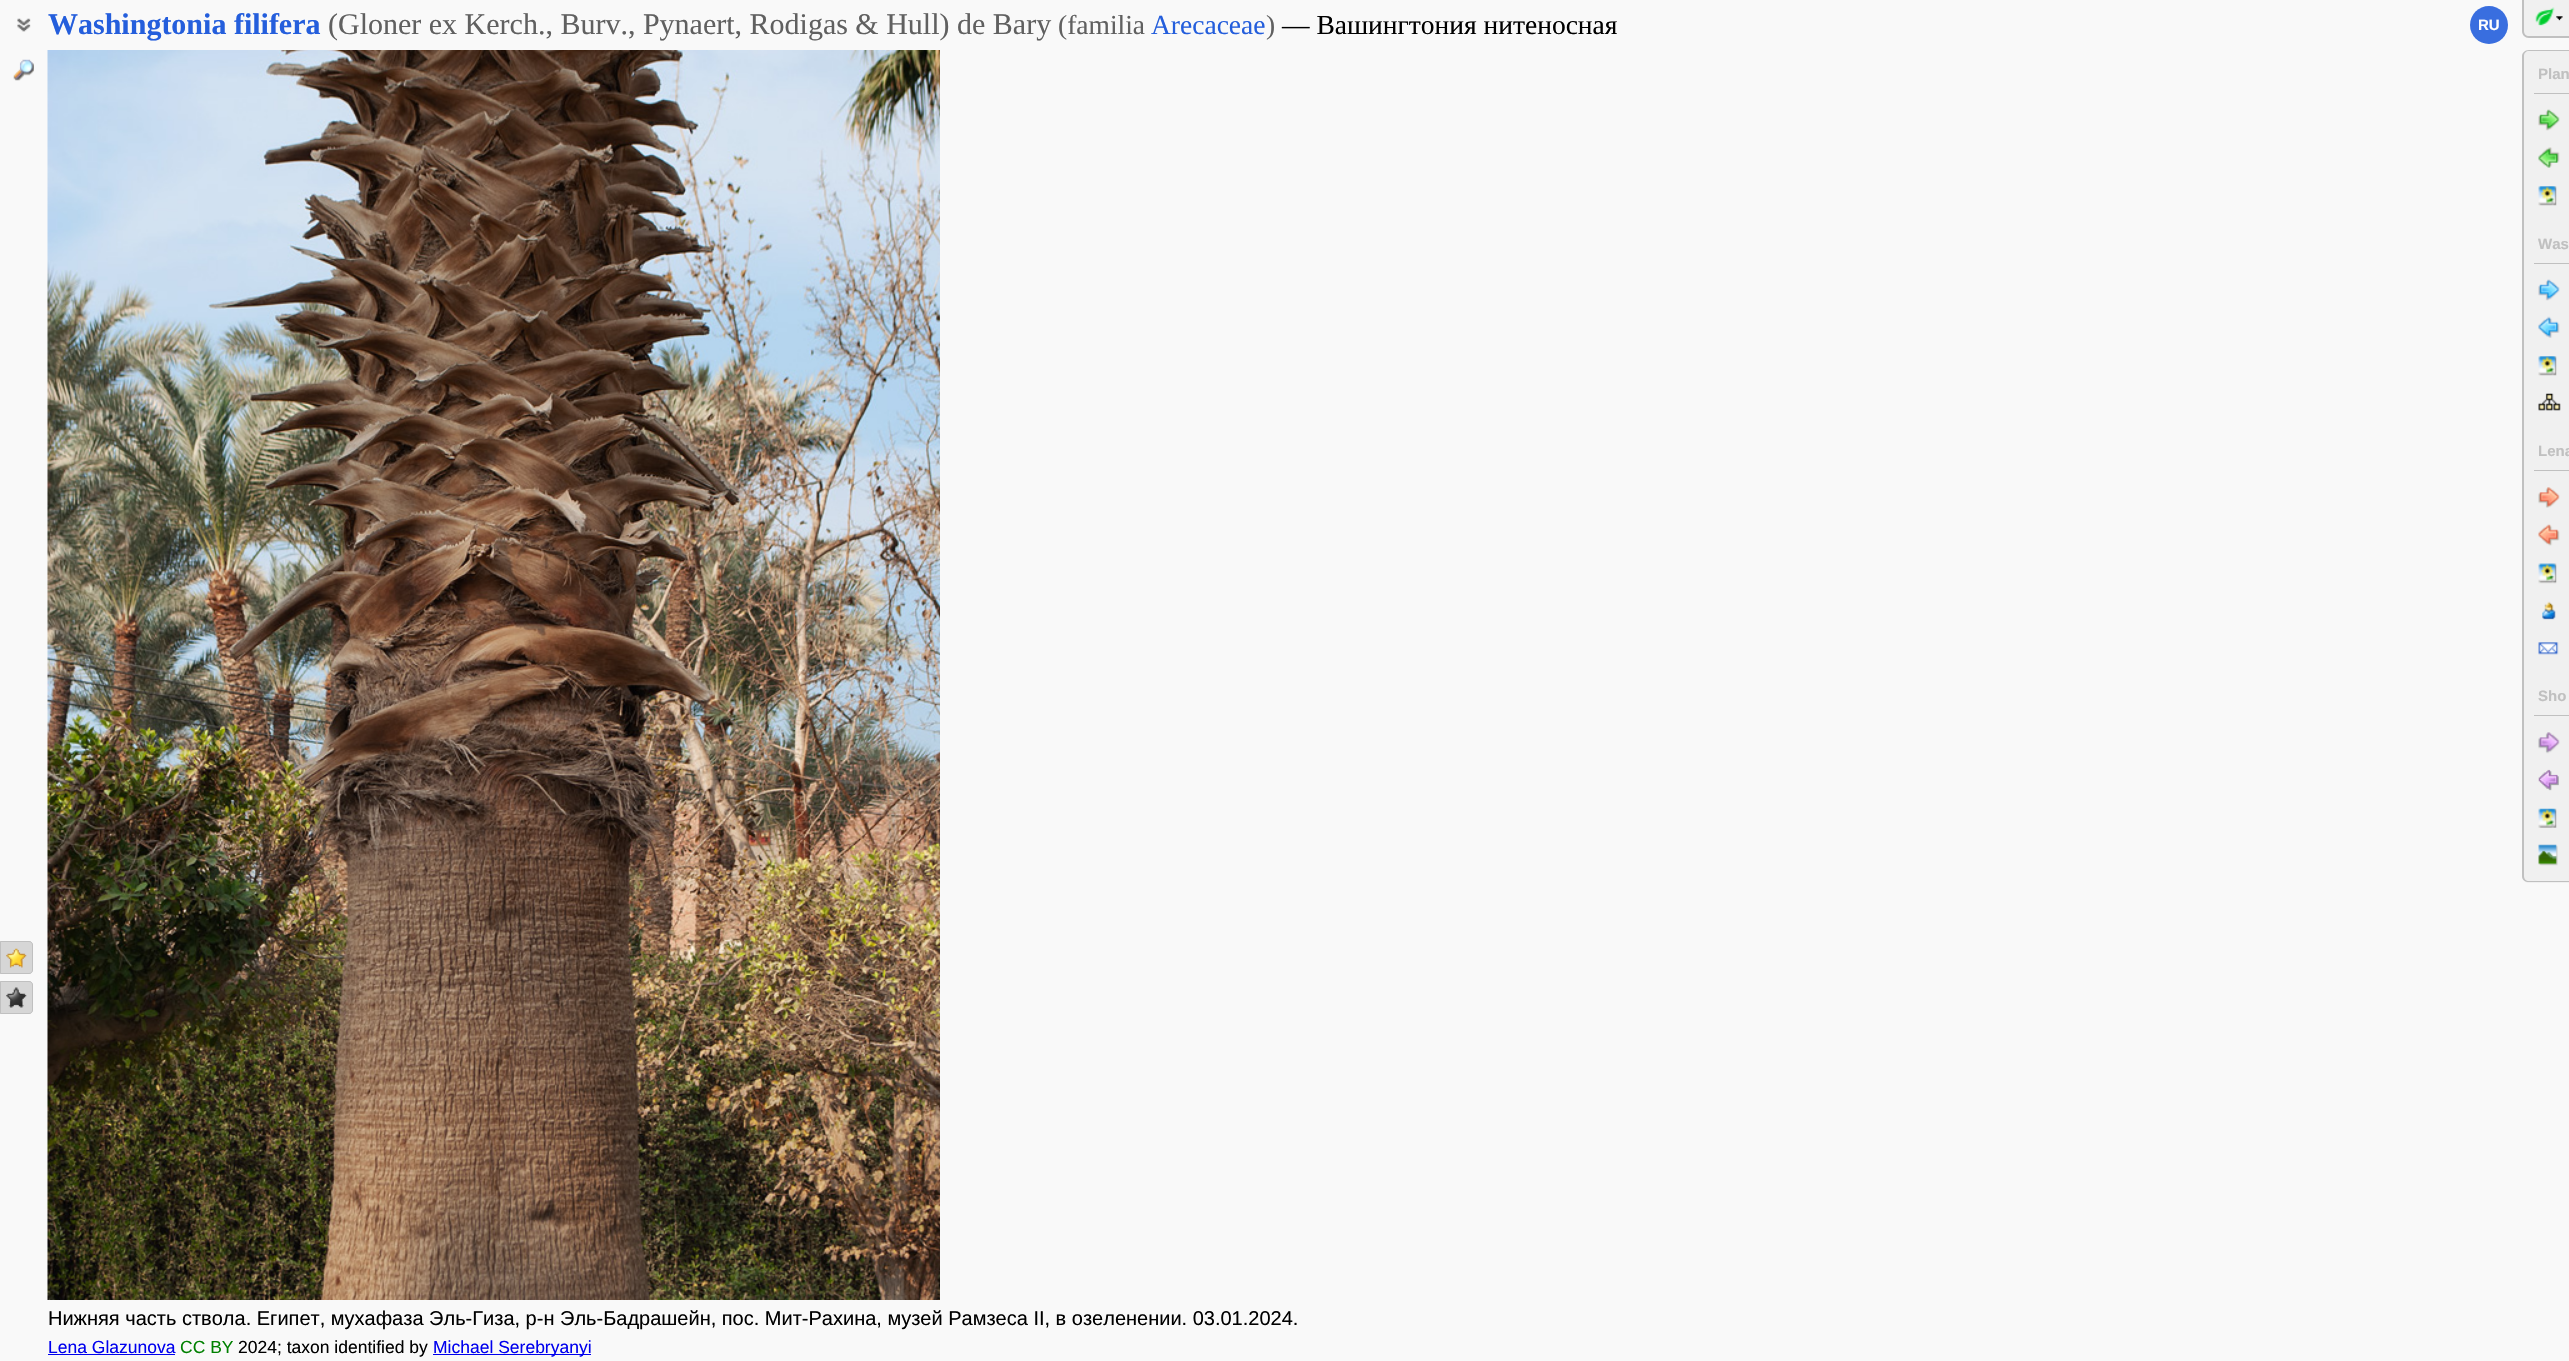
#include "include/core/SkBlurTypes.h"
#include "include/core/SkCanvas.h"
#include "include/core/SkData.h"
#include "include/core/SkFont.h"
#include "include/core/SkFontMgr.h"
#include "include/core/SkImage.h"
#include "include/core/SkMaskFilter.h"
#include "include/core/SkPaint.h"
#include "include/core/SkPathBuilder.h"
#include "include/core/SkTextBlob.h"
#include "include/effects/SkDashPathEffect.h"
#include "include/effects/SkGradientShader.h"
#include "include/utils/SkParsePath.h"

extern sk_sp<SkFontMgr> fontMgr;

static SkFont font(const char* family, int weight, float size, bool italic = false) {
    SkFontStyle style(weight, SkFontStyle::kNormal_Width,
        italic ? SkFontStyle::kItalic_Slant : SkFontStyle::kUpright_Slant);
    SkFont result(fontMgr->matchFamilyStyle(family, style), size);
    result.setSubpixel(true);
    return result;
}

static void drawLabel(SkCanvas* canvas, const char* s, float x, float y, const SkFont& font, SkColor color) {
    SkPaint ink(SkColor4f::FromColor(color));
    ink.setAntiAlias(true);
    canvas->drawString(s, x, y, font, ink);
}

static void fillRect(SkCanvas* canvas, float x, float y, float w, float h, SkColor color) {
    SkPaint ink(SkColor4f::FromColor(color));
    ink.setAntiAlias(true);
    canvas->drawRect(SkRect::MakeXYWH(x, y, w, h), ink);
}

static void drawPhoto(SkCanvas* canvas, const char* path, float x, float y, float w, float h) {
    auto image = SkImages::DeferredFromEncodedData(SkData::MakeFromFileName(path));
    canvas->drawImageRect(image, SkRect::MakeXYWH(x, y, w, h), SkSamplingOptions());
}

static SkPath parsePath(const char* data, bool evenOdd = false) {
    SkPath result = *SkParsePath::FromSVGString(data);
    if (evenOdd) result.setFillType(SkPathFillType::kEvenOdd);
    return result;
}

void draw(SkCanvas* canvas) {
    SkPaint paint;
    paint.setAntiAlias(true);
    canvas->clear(0xFFF9F9F9);
    drawPhoto(canvas, "assets/img1.png", 17, 18, 14, 14);
    SkFont font1 = font("Liberation Serif", 700, 30);
    drawLabel(canvas, "Washingtonia filifera", 48, 34, font1, 0xFF245EDC);
    SkFont font2 = font("Liberation Serif", 400, 30);
    drawLabel(canvas, "(Gloner ex Kerch., Burv., Pynaert, Rodigas & Hull) de Bary", 328, 34, font2, 0xFF606060);
    SkFont font3 = font("Liberation Serif", 400, 27.5f);
    drawLabel(canvas, "(familia", 1058, 34, font3, 0xFF606060);
    drawLabel(canvas, "Arecaceae", 1151, 34, font3, 0xFF245EDC);
    drawLabel(canvas, ")", 1266, 34, font3, 0xFF606060);
    drawLabel(canvas, "— Вашингтония нитеносная", 1282, 34, font3, 0xFF000000);
    paint.setColor(0xFF396EDF);
    canvas->drawCircle(2489, 25, 19, paint);
    SkFont font4 = font("Liberation Sans", 700, 15);
    drawLabel(canvas, "RU", 2478, 30, font4, 0xFFFEFEFE);
    drawPhoto(canvas, "assets/img2.png", 13, 59, 21, 22);
    paint.setColor(0xFFD6D6D6);
    canvas->drawPath(parsePath("M0 941H29C31 941 33 943 33 945V970C33 972 31 974 29 974H0Z"), paint);
    drawPhoto(canvas, "assets/img3.png", 6, 948, 21, 20);
    paint.setStroke(true);
    paint.setStrokeWidth(1);
    paint.setColor(0xFFC0C0C0);
    canvas->drawPath(parsePath("M.5 941.5H29C31 941.5 32.5 943 32.5 945V970C32.5 972 31 973.5 29 973.5H.5Z"), paint);
    paint.setStroke(false);
    paint.setColor(0xFFD6D6D6);
    canvas->drawPath(parsePath("M0 981H29C31 981 33 983 33 985V1010C33 1012 31 1014 29 1014H0Z"), paint);
    drawPhoto(canvas, "assets/img4.png", 6, 987, 21, 21);
    paint.setStroke(true);
    paint.setColor(0xFFC0C0C0);
    canvas->drawPath(parsePath("M.5 981.5H29C31 981.5 32.5 983 32.5 985V1010C32.5 1012 31 1013.5 29 1013.5H.5Z"), paint);
    paint.setStroke(false);
    paint.setColor(0xFFF0F0F0);
    canvas->drawPath(parsePath("M2523 0H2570V38H2529C2525.5 38 2523 35.5 2523 32Z"), paint);
    drawPhoto(canvas, "assets/img5.png", 2535, 7, 20, 19);
    paint.setColor(0xFFC0C0C0);
    canvas->drawPath(parsePath("M2522 0H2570V38H2529C2525 38 2522 35 2522 31ZM2524 0H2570V36H2529C2526 36 2524 34 2524 31Z", true), paint);
    drawPhoto(canvas, "assets/img6.png", 2556, 16, 7, 5);
    paint.setColor(0xFFF0F0F0);
    canvas->drawPath(parsePath("M2529 50H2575V883H2529C2525.5 883 2523 880.5 2523 877V56C2523 52.5 2525.5 50 2529 50Z"), paint);
    paint.setColor(0xFFC0C0C0);
    canvas->drawPath(parsePath("M2529 50H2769V882H2529C2525 882 2522 880 2522 876V56C2522 53 2525 50 2529 50ZM2529 51H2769V881H2529C2526 881 2524 879 2524 876V56C2524 53 2526 51 2529 51Z", true), paint);
    fillRect(canvas, 2534, 93, 35, 1, 0xFFC0C0C0);
    drawLabel(canvas, "Plan", 2538, 79, font4, 0xFFC0C0C0);
    drawPhoto(canvas, "assets/img7.png", 2538, 109, 22, 22);
    drawPhoto(canvas, "assets/img8.png", 2538, 147, 22, 21);
    drawPhoto(canvas, "assets/img9.png", 2538, 186, 19, 20);
    fillRect(canvas, 2534, 263, 35, 1, 0xFFC0C0C0);
    drawLabel(canvas, "Was", 2538, 249, font4, 0xFFC0C0C0);
    drawPhoto(canvas, "assets/img10.png", 2538, 279, 22, 22);
    drawPhoto(canvas, "assets/img11.png", 2538, 316, 22, 22);
    drawPhoto(canvas, "assets/img9.png", 2538, 356, 19, 20);
    drawPhoto(canvas, "assets/img12.png", 2538, 393, 23, 18);
    fillRect(canvas, 2534, 470, 35, 1, 0xFFC0C0C0);
    drawLabel(canvas, "Lena", 2538, 456, font4, 0xFFC0C0C0);
    drawPhoto(canvas, "assets/img13.png", 2538, 487, 22, 21);
    drawPhoto(canvas, "assets/img14.png", 2538, 524, 22, 22);
    drawPhoto(canvas, "assets/img15.png", 2538, 563, 19, 21);
    drawPhoto(canvas, "assets/img16.png", 2542, 601, 14, 19);
    drawPhoto(canvas, "assets/img17.png", 2538, 642, 21, 13);
    fillRect(canvas, 2534, 715, 35, 1, 0xFFC0C0C0);
    drawLabel(canvas, "Sho", 2538, 701, font4, 0xFFC0C0C0);
    drawPhoto(canvas, "assets/img18.png", 2538, 732, 22, 22);
    drawPhoto(canvas, "assets/img19.png", 2538, 769, 21, 22);
    drawPhoto(canvas, "assets/img20.png", 2538, 808, 19, 20);
    drawPhoto(canvas, "assets/img21.png", 2538, 844, 20, 22);
    drawPhoto(canvas, "assets/img22.png", 47, 50, 893, 1250);
    SkFont font5 = font("Liberation Sans", 400, 20);
    drawLabel(canvas, "Нижняя часть ствола. Египет, мухафаза Эль-Гиза, р-н Эль-Бадрашейн, пос. Мит-Рахина, музей Рамзеса II, в озеленении. 03.01.2024.", 48, 1325, font5, 0xFF000000);
    SkFont font6 = font("Liberation Sans", 400, 17.5f);
    drawLabel(canvas, "Lena Glazunova", 48, 1353, font6, 0xFF0000EE);
    fillRect(canvas, 48, 1354, 127, 1, 0xFF0000EE);
    drawLabel(canvas, "CC BY", 180, 1353, font6, 0xFF008000);
    drawLabel(canvas, "2024; taxon identified by", 238, 1353, font6, 0xFF000000);
    fillRect(canvas, 433, 1354, 158, 1, 0xFF0000EE);
    drawLabel(canvas, "Michael Serebryanyi", 433, 1353, font6, 0xFF0000EE);
}
